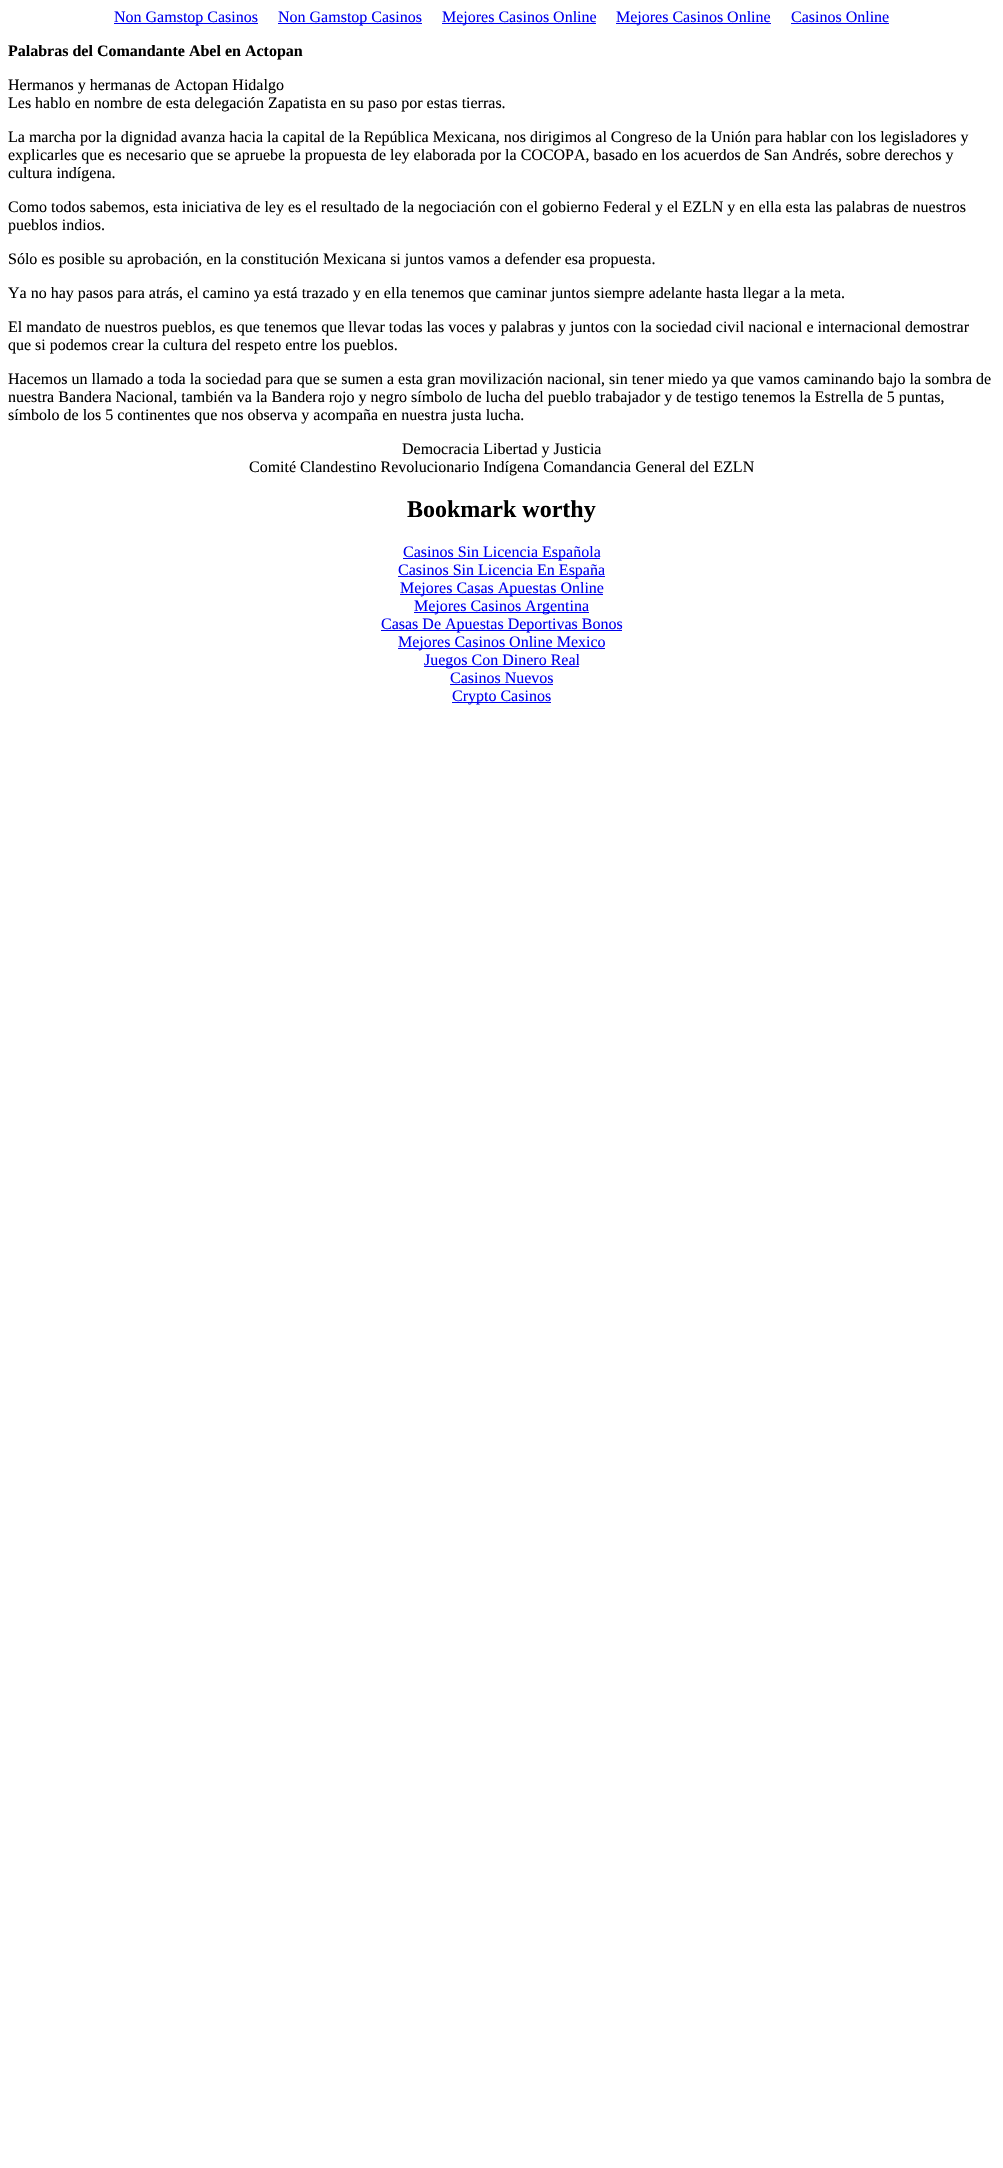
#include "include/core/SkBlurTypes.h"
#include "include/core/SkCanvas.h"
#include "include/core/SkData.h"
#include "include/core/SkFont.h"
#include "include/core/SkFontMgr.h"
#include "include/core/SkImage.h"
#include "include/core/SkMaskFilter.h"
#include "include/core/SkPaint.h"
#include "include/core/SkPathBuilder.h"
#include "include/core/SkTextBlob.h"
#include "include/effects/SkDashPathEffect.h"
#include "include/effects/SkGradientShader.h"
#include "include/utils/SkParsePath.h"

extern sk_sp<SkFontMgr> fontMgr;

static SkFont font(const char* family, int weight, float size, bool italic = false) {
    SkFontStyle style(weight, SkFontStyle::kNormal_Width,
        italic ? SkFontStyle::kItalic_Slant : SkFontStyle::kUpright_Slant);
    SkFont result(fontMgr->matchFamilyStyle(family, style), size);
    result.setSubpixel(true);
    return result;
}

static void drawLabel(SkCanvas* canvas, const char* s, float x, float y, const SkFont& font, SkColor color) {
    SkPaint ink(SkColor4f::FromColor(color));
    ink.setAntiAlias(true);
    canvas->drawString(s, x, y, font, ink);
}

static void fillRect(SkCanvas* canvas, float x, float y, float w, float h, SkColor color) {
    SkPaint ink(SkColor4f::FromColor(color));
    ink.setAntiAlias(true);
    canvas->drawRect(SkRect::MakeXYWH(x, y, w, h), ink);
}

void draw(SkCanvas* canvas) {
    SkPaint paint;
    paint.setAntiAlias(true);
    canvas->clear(0xFFFFFFFF);
    fillRect(canvas, 114, 23, 144, 1, 0xFF0000EE);
    SkFont font1 = font("Liberation Serif", 400, 16);
    drawLabel(canvas, "Non Gamstop Casinos", 114, 22, font1, 0xFF0000EE);
    fillRect(canvas, 278, 23, 144, 1, 0xFF0000EE);
    drawLabel(canvas, "Non Gamstop Casinos", 278, 22, font1, 0xFF0000EE);
    fillRect(canvas, 442, 23, 154, 1, 0xFF0000EE);
    drawLabel(canvas, "Mejores Casinos Online", 442, 22, font1, 0xFF0000EE);
    fillRect(canvas, 616, 23, 155, 1, 0xFF0000EE);
    drawLabel(canvas, "Mejores Casinos Online", 616, 22, font1, 0xFF0000EE);
    drawLabel(canvas, "Casinos Online", 791, 22, font1, 0xFF0000EE);
    fillRect(canvas, 791, 23, 98, 1, 0xFF0000EE);
    SkFont font2 = font("Liberation Serif", 700, 16);
    drawLabel(canvas, "Palabras del Comandante Abel en Actopan", 8, 56, font2, 0xFF000000);
    drawLabel(canvas, "Hermanos y hermanas de Actopan Hidalgo", 8, 90, font1, 0xFF000000);
    drawLabel(canvas, "Les hablo en nombre de esta delegación Zapatista en su paso por estas tierras.", 8, 108, font1, 0xFF000000);
    drawLabel(canvas, "La marcha por la dignidad avanza hacia la capital de la República Mexicana, nos dirigimos al Congreso de la Unión para hablar con los legisladores y", 8, 142, font1, 0xFF000000);
    drawLabel(canvas, "explicarles que es necesario que se apruebe la propuesta de ley elaborada por la COCOPA, basado en los acuerdos de San Andrés, sobre derechos y", 8, 160, font1, 0xFF000000);
    drawLabel(canvas, "cultura indígena.", 8, 178, font1, 0xFF000000);
    drawLabel(canvas, "Como todos sabemos, esta iniciativa de ley es el resultado de la negociación con el gobierno Federal y el EZLN y en ella esta las palabras de nuestros", 8, 212, font1, 0xFF000000);
    drawLabel(canvas, "pueblos indios.", 8, 230, font1, 0xFF000000);
    drawLabel(canvas, "Sólo es posible su aprobación, en la constitución Mexicana si juntos vamos a defender esa propuesta.", 8, 264, font1, 0xFF000000);
    drawLabel(canvas, "Ya no hay pasos para atrás, el camino ya está trazado y en ella tenemos que caminar juntos siempre adelante hasta llegar a la meta.", 8, 298, font1, 0xFF000000);
    drawLabel(canvas, "El mandato de nuestros pueblos, es que tenemos que llevar todas las voces y palabras y juntos con la sociedad civil nacional e internacional demostrar", 8, 332, font1, 0xFF000000);
    drawLabel(canvas, "que si podemos crear la cultura del respeto entre los pueblos.", 8, 350, font1, 0xFF000000);
    drawLabel(canvas, "Hacemos un llamado a toda la sociedad para que se sumen a esta gran movilización nacional, sin tener miedo ya que vamos caminando bajo la sombra de", 8, 384, font1, 0xFF000000);
    drawLabel(canvas, "nuestra Bandera Nacional, también va la Bandera rojo y negro símbolo de lucha del pueblo trabajador y de testigo tenemos la Estrella de 5 puntas,", 8, 402, font1, 0xFF000000);
    drawLabel(canvas, "símbolo de los 5 continentes que nos observa y acompaña en nuestra justa lucha.", 8, 420, font1, 0xFF000000);
    drawLabel(canvas, "Democracia Libertad y Justicia", 402, 454, font1, 0xFF000000);
    drawLabel(canvas, "Comité Clandestino Revolucionario Indígena Comandancia General del EZLN", 249, 472, font1, 0xFF000000);
    SkFont font3 = font("Liberation Serif", 700, 24);
    drawLabel(canvas, "Bookmark worthy", 407, 517, font3, 0xFF000000);
    fillRect(canvas, 403, 558, 197, 1, 0xFF0000EE);
    drawLabel(canvas, "Casinos Sin Licencia Española", 403, 557, font1, 0xFF0000EE);
    fillRect(canvas, 398, 576, 207, 1, 0xFF0000EE);
    drawLabel(canvas, "Casinos Sin Licencia En España", 398, 575, font1, 0xFF0000EE);
    fillRect(canvas, 400, 594, 203, 1, 0xFF0000EE);
    drawLabel(canvas, "Mejores Casas Apuestas Online", 400, 593, font1, 0xFF0000EE);
    fillRect(canvas, 414, 612, 175, 1, 0xFF0000EE);
    drawLabel(canvas, "Mejores Casinos Argentina", 414, 611, font1, 0xFF0000EE);
    fillRect(canvas, 381, 630, 241, 1, 0xFF0000EE);
    drawLabel(canvas, "Casas De Apuestas Deportivas Bonos", 381, 629, font1, 0xFF0000EE);
    fillRect(canvas, 398, 648, 207, 1, 0xFF0000EE);
    drawLabel(canvas, "Mejores Casinos Online Mexico", 398, 647, font1, 0xFF0000EE);
    fillRect(canvas, 424, 666, 155, 1, 0xFF0000EE);
    drawLabel(canvas, "Juegos Con Dinero Real", 424, 665, font1, 0xFF0000EE);
    drawLabel(canvas, "Casinos Nuevos", 450, 683, font1, 0xFF0000EE);
    fillRect(canvas, 450, 684, 103, 1, 0xFF0000EE);
    fillRect(canvas, 452, 702, 99, 1, 0xFF0000EE);
    drawLabel(canvas, "Crypto Casinos", 452, 701, font1, 0xFF0000EE);
}
